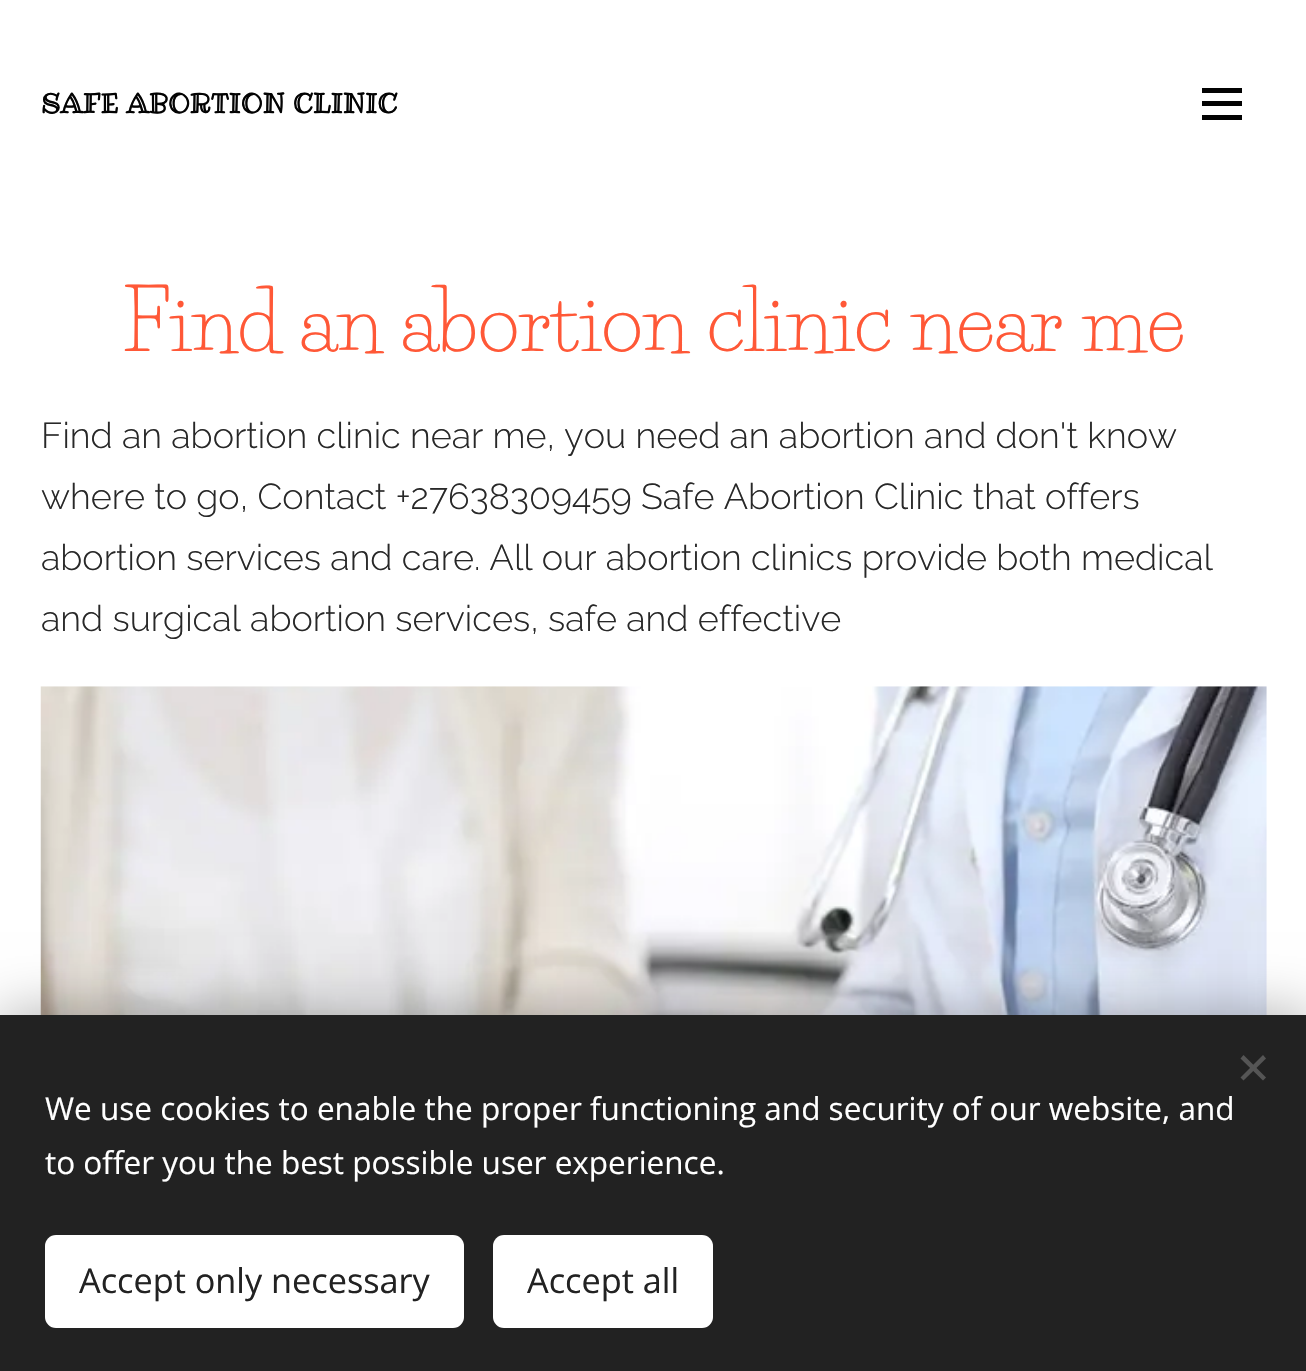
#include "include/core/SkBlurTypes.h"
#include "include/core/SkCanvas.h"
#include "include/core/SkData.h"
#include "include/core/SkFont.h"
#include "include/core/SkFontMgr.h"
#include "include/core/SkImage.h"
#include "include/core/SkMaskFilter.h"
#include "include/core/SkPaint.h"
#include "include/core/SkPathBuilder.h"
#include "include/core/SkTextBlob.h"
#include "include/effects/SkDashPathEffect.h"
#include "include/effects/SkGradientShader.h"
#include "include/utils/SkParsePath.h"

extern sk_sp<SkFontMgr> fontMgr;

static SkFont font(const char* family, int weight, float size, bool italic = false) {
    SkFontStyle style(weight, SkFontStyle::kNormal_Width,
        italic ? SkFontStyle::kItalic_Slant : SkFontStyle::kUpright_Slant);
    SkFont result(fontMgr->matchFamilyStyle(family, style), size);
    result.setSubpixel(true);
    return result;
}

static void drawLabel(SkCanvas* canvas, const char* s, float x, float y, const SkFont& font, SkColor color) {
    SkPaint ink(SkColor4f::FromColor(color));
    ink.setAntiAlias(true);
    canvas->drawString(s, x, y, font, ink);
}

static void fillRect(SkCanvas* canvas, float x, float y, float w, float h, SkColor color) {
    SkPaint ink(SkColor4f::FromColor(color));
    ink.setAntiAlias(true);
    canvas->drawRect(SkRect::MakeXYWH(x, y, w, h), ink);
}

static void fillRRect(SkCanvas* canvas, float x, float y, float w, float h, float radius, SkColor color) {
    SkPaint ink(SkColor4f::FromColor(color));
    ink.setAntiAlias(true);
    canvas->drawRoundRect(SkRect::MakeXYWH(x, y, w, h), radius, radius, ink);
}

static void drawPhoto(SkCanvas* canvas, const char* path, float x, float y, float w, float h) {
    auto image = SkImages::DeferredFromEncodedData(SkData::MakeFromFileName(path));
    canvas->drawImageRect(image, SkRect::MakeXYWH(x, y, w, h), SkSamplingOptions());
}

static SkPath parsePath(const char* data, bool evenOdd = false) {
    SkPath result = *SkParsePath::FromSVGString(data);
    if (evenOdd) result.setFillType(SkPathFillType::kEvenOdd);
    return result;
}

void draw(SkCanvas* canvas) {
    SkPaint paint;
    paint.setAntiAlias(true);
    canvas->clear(0xFFFFFFFF);
    SkFont font1 = font("Ribeye Marrow", 700, 27.1f);
    drawLabel(canvas, "SAFE ABORTION CLINIC", 41, 113, font1, 0xFF030303);
    fillRect(canvas, 1202, 101, 40, 5, 0xFF030303);
    fillRect(canvas, 1202, 88, 40, 5, 0xFF030303);
    fillRect(canvas, 1202, 115, 40, 5, 0xFF030303);
    SkFont font2 = font("Life Savers", 400, 81);
    drawLabel(canvas, "Find an abortion clinic near me", 123, 351, font2, 0xFFFF5837);
    SkFont font3 = font("Raleway", 300, 36);
    drawLabel(canvas, "Find an abortion clinic near me, you need an abortion and don't know", 41, 448, font3, 0xFF282828);
    drawLabel(canvas, "where to go, Contact +27638309459 Safe Abortion Clinic that offers", 41, 509, font3, 0xFF282828);
    drawLabel(canvas, "abortion services and care. All our abortion clinics provide both medical", 41, 570, font3, 0xFF282828);
    drawLabel(canvas, "and surgical abortion services, safe and effective", 41, 631, font3, 0xFF282828);
    drawPhoto(canvas, "assets/img1.png", 40, 686, 1227, 329);
    paint.setColor(0x54000000);
    paint.setMaskFilter(SkMaskFilter::MakeBlur(kNormal_SkBlurStyle, 28));
    canvas->drawRect(SkRect::MakeXYWH(0, 1015, 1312, 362), paint);
    paint.setMaskFilter(nullptr);
    fillRect(canvas, 0, 1015, 1306, 356, 0xFF222222);
    paint.setColor(0xFF555555);
    canvas->drawPath(parsePath("M1240.5 1077.5L1263 1055L1266 1058.5L1243.5 1080.5Z"), paint);
    canvas->drawPath(parsePath("M1243.5 1055L1266 1077.5L1263 1080.5L1240.5 1058.5Z"), paint);
    SkFont font4 = font("Open Sans", 400, 31.5f);
    drawLabel(canvas, "We use cookies to enable the proper functioning and security of our website, and", 45, 1120, font4, 0xFFFFFFFF);
    drawLabel(canvas, "to offer you the best possible user experience.", 45, 1174, font4, 0xFFFFFFFF);
    fillRRect(canvas, 45, 1235, 419, 93, 11, 0xFFFFFFFF);
    SkFont font5 = font("Open Sans", 400, 34.25f);
    drawLabel(canvas, "Accept only necessary", 79, 1293, font5, 0xFF222222);
    fillRRect(canvas, 493, 1235, 220, 93, 11, 0xFFFFFFFF);
    drawLabel(canvas, "Accept all", 527, 1293, font5, 0xFF222222);
}
